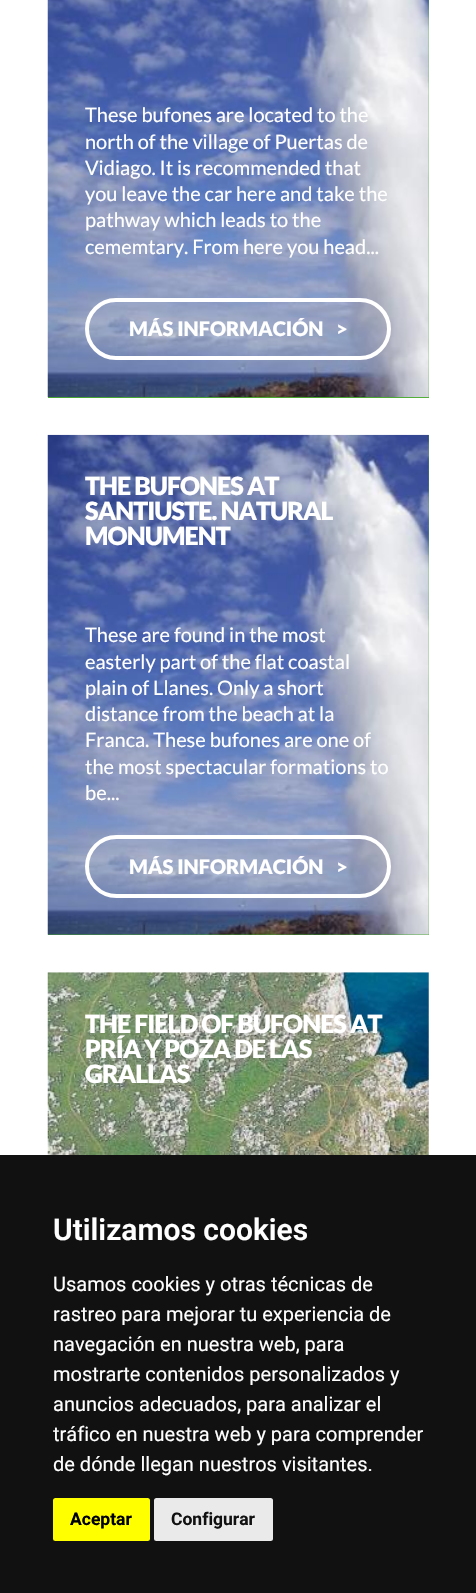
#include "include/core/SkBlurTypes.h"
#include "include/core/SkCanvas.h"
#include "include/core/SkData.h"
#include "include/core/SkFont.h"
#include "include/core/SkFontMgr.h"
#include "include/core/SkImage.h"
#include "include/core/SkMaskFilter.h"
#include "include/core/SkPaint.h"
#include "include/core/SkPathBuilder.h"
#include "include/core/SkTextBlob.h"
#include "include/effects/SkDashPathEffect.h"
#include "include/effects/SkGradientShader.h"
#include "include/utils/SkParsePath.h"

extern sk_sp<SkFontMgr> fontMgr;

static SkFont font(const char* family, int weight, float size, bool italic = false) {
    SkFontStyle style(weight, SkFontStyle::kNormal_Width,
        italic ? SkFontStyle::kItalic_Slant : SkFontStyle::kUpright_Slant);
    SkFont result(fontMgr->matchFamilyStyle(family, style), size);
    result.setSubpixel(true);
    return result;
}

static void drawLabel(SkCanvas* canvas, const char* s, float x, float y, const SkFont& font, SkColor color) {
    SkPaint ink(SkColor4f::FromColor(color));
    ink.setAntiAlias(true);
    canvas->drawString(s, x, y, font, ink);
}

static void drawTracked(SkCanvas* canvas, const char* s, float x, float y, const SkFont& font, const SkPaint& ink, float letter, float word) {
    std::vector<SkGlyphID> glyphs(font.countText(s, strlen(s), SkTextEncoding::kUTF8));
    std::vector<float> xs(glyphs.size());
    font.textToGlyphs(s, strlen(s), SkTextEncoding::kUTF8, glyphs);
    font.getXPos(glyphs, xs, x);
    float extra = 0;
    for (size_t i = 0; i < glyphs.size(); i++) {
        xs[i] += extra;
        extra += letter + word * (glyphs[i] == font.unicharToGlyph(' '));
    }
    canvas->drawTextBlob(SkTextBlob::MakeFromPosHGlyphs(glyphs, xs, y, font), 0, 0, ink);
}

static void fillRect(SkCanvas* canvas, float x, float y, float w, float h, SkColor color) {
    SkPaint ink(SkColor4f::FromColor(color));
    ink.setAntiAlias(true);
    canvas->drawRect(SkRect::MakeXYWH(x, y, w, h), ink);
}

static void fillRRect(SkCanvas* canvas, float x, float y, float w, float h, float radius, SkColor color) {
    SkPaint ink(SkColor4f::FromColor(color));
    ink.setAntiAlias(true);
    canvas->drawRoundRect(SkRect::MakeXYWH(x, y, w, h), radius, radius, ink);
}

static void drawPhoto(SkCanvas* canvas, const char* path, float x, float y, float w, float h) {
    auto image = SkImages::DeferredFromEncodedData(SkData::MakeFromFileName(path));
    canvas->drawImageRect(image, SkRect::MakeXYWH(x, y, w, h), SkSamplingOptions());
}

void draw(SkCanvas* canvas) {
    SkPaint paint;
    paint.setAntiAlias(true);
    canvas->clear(0xFFFFFFFF);
    fillRect(canvas, 48, 0, 381, 398, 0xFF48AD2F);
    drawPhoto(canvas, "assets/img1.png", 47, 0, 382, 398);
    SkFont font1 = font("Lato", 400, 20);
    drawLabel(canvas, "These bufones are located to the", 85, 122, font1, 0xFFFFFFFF);
    drawLabel(canvas, "north of the village of Puertas de", 85, 149, font1, 0xFFFFFFFF);
    drawLabel(canvas, "Vidiago. It is recommended that", 85, 175, font1, 0xFFFFFFFF);
    drawLabel(canvas, "you leave the car here and take the", 85, 201, font1, 0xFFFFFFFF);
    drawLabel(canvas, "pathway which leads to the", 85, 227, font1, 0xFFFFFFFF);
    drawLabel(canvas, "cememtary. From here you head...", 85, 254, font1, 0xFFFFFFFF);
    paint.setStroke(true);
    paint.setStrokeWidth(4);
    paint.setColor(0xFFFFFFFF);
    canvas->drawRoundRect(SkRect::MakeXYWH(87, 300, 302, 58), 29, 29, paint);
    SkFont font2 = font("Lato", 900, 20);
    drawLabel(canvas, "MÁS INFORMACIÓN", 129, 336, font2, 0xFFFFFFFF);
    drawLabel(canvas, ">", 336, 336, font2, 0xFFFFFFFF);
    fillRect(canvas, 48, 435, 381, 500, 0xFF48AD2F);
    drawPhoto(canvas, "assets/img2.png", 47, 434, 382, 501);
    SkFont font3 = font("Lato", 900, 25);
    paint.setStroke(false);
    drawTracked(canvas, "THE BUFONES AT", 85, 495, font3, paint, -0.9f, 0);
    drawTracked(canvas, "SANTIUSTE. NATURAL", 85, 520, font3, paint, -0.9f, 0);
    drawTracked(canvas, "MONUMENT", 85, 545, font3, paint, -0.9f, 0);
    drawLabel(canvas, "These are found in the most", 85, 642, font1, 0xFFFFFFFF);
    drawLabel(canvas, "easterly part of the flat coastal", 85, 669, font1, 0xFFFFFFFF);
    drawLabel(canvas, "plain of Llanes. Only a short", 85, 695, font1, 0xFFFFFFFF);
    drawLabel(canvas, "distance from the beach at la", 85, 721, font1, 0xFFFFFFFF);
    drawLabel(canvas, "Franca. These bufones are one of", 85, 747, font1, 0xFFFFFFFF);
    drawLabel(canvas, "the most spectacular formations to", 85, 774, font1, 0xFFFFFFFF);
    drawLabel(canvas, "be...", 85, 800, font1, 0xFFFFFFFF);
    paint.setStroke(true);
    canvas->drawRoundRect(SkRect::MakeXYWH(87, 837, 302, 59), 29.5f, 29.5f, paint);
    drawLabel(canvas, "MÁS INFORMACIÓN", 129, 874, font2, 0xFFFFFFFF);
    drawLabel(canvas, ">", 336, 874, font2, 0xFFFFFFFF);
    drawPhoto(canvas, "assets/img3.png", 47, 972, 382, 183);
    paint.setStroke(false);
    drawTracked(canvas, "THE FIELD OF BUFONES AT", 85, 1033, font3, paint, -0.9f, 0);
    drawTracked(canvas, "PRÍA Y POZA DE LAS", 85, 1058, font3, paint, -0.9f, 0);
    drawTracked(canvas, "GRALLAS", 85, 1083, font3, paint, -0.9f, 0);
    fillRect(canvas, 0, 1155, 476, 438, 0xFF111111);
    SkFont font4 = font("Roboto", 600, 30);
    drawLabel(canvas, "Utilizamos cookies", 53, 1240, font4, 0xFFFFFFFF);
    SkFont font5 = font("Roboto", 400, 20);
    drawLabel(canvas, "Usamos cookies y otras técnicas de", 53, 1291, font5, 0xFFFFFFFF);
    drawLabel(canvas, "rastreo para mejorar tu experiencia de", 53, 1321, font5, 0xFFFFFFFF);
    drawLabel(canvas, "navegación en nuestra web, para", 53, 1351, font5, 0xFFFFFFFF);
    drawLabel(canvas, "mostrarte contenidos personalizados y", 53, 1381, font5, 0xFFFFFFFF);
    drawLabel(canvas, "anuncios adecuados, para analizar el", 53, 1411, font5, 0xFFFFFFFF);
    drawLabel(canvas, "tráfico en nuestra web y para comprender", 53, 1441, font5, 0xFFFFFFFF);
    drawLabel(canvas, "de dónde llegan nuestros visitantes.", 53, 1471, font5, 0xFFFFFFFF);
    fillRRect(canvas, 53, 1498, 97, 43, 2.5f, 0xFFFFFF00);
    SkFont font6 = font("Roboto", 700, 17.5f);
    drawLabel(canvas, "Aceptar", 70, 1525, font6, 0xFF000000);
    fillRRect(canvas, 154, 1498, 119, 43, 2.5f, 0xFFEAEAEA);
    drawLabel(canvas, "Configurar", 171, 1525, font6, 0xFF111111);
}
